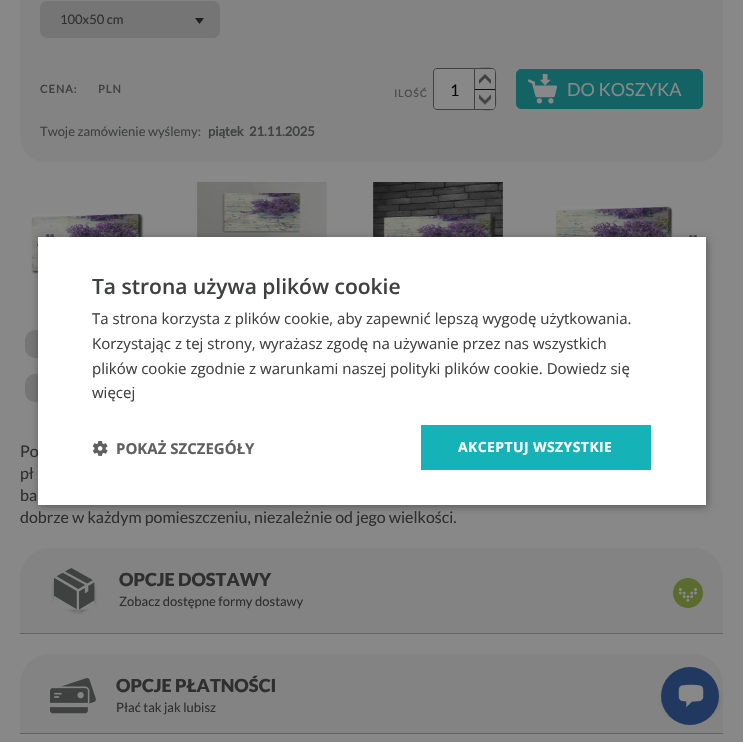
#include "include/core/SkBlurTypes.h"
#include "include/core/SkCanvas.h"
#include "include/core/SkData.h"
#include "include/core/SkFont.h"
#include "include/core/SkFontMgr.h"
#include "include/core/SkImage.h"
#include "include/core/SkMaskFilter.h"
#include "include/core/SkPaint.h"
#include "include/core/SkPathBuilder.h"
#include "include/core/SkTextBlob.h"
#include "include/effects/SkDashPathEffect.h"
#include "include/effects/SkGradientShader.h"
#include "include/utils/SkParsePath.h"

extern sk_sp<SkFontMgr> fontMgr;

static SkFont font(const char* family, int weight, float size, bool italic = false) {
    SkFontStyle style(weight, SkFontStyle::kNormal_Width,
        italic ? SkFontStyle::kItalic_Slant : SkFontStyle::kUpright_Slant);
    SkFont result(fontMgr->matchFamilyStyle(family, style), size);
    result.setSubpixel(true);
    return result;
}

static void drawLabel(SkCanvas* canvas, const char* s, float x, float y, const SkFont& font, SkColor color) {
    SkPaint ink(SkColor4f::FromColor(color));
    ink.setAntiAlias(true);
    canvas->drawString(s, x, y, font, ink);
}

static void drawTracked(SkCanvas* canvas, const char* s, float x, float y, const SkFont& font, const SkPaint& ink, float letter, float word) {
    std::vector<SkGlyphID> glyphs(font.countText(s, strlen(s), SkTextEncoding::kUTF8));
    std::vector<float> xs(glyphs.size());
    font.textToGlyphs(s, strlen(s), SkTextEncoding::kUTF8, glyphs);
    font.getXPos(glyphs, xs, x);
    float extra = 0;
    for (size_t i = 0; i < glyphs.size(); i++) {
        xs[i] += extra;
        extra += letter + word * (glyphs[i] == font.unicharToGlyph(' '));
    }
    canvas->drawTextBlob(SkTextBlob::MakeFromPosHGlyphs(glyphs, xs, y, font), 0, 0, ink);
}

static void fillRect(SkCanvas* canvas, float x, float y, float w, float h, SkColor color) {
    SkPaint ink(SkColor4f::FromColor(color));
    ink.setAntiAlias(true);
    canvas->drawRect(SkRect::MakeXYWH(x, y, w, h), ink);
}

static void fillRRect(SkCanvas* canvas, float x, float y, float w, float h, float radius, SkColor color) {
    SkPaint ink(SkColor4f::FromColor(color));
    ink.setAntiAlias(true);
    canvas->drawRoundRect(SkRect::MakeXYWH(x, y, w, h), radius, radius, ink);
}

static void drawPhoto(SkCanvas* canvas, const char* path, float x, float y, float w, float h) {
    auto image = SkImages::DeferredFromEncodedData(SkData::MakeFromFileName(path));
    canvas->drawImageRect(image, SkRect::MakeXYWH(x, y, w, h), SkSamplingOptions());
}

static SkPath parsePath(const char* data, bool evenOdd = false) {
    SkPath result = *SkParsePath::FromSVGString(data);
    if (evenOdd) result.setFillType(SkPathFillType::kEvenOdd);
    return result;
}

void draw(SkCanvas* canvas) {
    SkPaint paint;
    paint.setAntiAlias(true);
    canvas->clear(0xFF888888);
    fillRRect(canvas, 20, -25, 703, 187, 25, 0xFF838383);
    fillRRect(canvas, 40, 1, 180, 37, 7, 0xFF757575);
    SkFont font1 = font("Lato", 400, 13);
    drawLabel(canvas, "100x50 cm", 60, 24, font1, 0xFF2F2F2F);
    drawPhoto(canvas, "assets/img1.png", 195, 18, 9, 6);
    SkFont font2 = font("Lato", 700, 11);
    paint.setColor(0xFF3F4041);
    drawTracked(canvas, "CENA:", 40, 93, font2, paint, 1, 0);
    drawTracked(canvas, "PLN", 98, 93, font2, paint, 1, 0);
    SkFont font3 = font("Lato", 700, 10);
    paint.setColor(0xFF4D4D4D);
    drawTracked(canvas, "ILOŚĆ", 394, 97, font3, paint, 1, 0);
    paint.setColor(0xFF888888);
    canvas->drawPath(parsePath("M437 68.5H474.5V109.5H437C435 109.5 433.5 108 433.5 106V72C433.5 70 435 68.5 437 68.5Z"), paint);
    paint.setStroke(true);
    paint.setStrokeWidth(1);
    paint.setColor(0xFF3F4041);
    canvas->drawPath(parsePath("M437 68.5H474.5V109.5H437C435 109.5 433.5 108 433.5 106V72C433.5 70 435 68.5 437 68.5Z"), paint);
    SkFont font4 = font("Lato", 400, 16);
    drawLabel(canvas, "1", 450, 96, font4, 0xFF090909);
    paint.setStroke(false);
    canvas->drawPath(parsePath("M475 68C499 68 496 64 496 89C496 114 499 110 475 110ZM475 69H492C494 69 495 70 495 72V106C495 108 494 109 492 109H475Z", true), paint);
    paint.setColor(0xFF888888);
    canvas->drawPath(parsePath("M475 69H492C493.5 69 495 70.5 495 72V90H475Z"), paint);
    drawPhoto(canvas, "assets/img2.png", 479, 74, 12, 10);
    fillRect(canvas, 475, 89, 20, 1, 0xFF111111);
    canvas->drawPath(parsePath("M475 90H495V106C495 107.5 493.5 109 492 109H475Z"), paint);
    drawPhoto(canvas, "assets/img3.png", 479, 94, 12, 11);
    paint.setColor(0xFF136264);
    canvas->drawRoundRect(SkRect::MakeXYWH(516.5f, 69.5f, 186, 39), 4.5f, 4.5f, paint);
    paint.setStroke(true);
    canvas->drawRoundRect(SkRect::MakeXYWH(516.5f, 69.5f, 186, 39), 4.5f, 4.5f, paint);
    drawPhoto(canvas, "assets/img4.png", 528, 74, 29, 30);
    SkFont font5 = font("Lato", 400, 18);
    drawLabel(canvas, "DO KOSZYKA", 567, 96, font5, 0xFF888888);
    drawLabel(canvas, "Twoje zamówienie wyślemy:", 40, 136, font1, 0xFF3F4041);
    SkFont font6 = font("Lato", 700, 13);
    drawLabel(canvas, "piątek", 208, 136, font6, 0xFF3F4041);
    drawLabel(canvas, "21.11.2025", 249, 136, font6, 0xFF3F4041);
    drawPhoto(canvas, "assets/img5.png", 31, 213, 113, 68);
    drawPhoto(canvas, "assets/img6.png", 197, 182, 130, 55);
    drawPhoto(canvas, "assets/img7.png", 373, 182, 130, 55);
    drawPhoto(canvas, "assets/img8.png", 556, 206, 117, 31);
    canvas->save();
    canvas->clipRect(SkRect::MakeXYWH(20, 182, 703, 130));
    canvas->clipPath(parsePath("M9 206H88V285H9ZM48.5 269C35.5 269 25 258.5 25 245.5C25 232.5 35.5 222 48.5 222C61.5 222 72 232.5 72 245.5C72 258.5 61.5 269 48.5 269Z", true), true);
    paint.setStroke(false);
    paint.setColor(0xE3888888);
    paint.setMaskFilter(SkMaskFilter::MakeBlur(kNormal_SkBlurStyle, 5));
    canvas->drawRoundRect(SkRect::MakeXYWH(25, 222, 47, 47), 23.5f, 23.5f, paint);
    paint.setMaskFilter(nullptr);
    canvas->restore();
    paint.setColor(0xAB888888);
    canvas->drawPath(parsePath("M48 269C18 269 18 222 48 222C79 222 79 269 48 269Z"), paint);
    drawPhoto(canvas, "assets/img9.png", 37, 234, 17, 13);
    canvas->save();
    canvas->clipRect(SkRect::MakeXYWH(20, 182, 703, 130));
    canvas->clipPath(parsePath("M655 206H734V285H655ZM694.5 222C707.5 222 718 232.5 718 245.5C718 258.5 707.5 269 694.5 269C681.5 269 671 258.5 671 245.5C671 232.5 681.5 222 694.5 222Z", true), true);
    paint.setColor(0xE3888888);
    paint.setMaskFilter(SkMaskFilter::MakeBlur(kNormal_SkBlurStyle, 5));
    canvas->drawRoundRect(SkRect::MakeXYWH(671, 222, 47, 47), 23.5f, 23.5f, paint);
    paint.setMaskFilter(nullptr);
    canvas->restore();
    drawPhoto(canvas, "assets/img10.png", 689, 235, 8, 2);
    fillRRect(canvas, 25, 330, 222, 28, 10, 0xFF757575);
    fillRRect(canvas, 25, 374, 207, 28, 10, 0xFF757575);
    drawLabel(canvas, "Po", 20, 457, font4, 0xFF2F2F2F);
    drawLabel(canvas, "pł", 20, 479, font4, 0xFF2F2F2F);
    drawLabel(canvas, "ba", 20, 501, font4, 0xFF2F2F2F);
    drawLabel(canvas, "dobrze w każdym pomieszczeniu, niezależnie od jego wielkości.", 20, 523, font4, 0xFF2F2F2F);
    paint.setColor(0xFF838383);
    canvas->drawPath(parsePath("M50 548H693C709.5 548 723 561.5 723 578V634H20V578C20 561.5 33.5 548 50 548Z"), paint);
    fillRect(canvas, 20, 633, 703, 1, 0xFF646464);
    drawPhoto(canvas, "assets/img11.png", 51, 568, 46, 47);
    SkFont font7 = font("Lato", 900, 18);
    drawLabel(canvas, "OPCJE DOSTAWY", 119, 586, font7, 0xFF2F2F2F);
    drawLabel(canvas, "Zobacz dostępne formy dostawy", 119, 606, font1, 0xFF2F2F2F);
    drawPhoto(canvas, "assets/img12.png", 673, 578, 30, 30);
    canvas->drawPath(parsePath("M50 654H693C709.5 654 723 667.5 723 684V734H20V684C20 667.5 33.5 654 50 654Z"), paint);
    fillRect(canvas, 20, 733, 703, 1, 0xFF646464);
    drawPhoto(canvas, "assets/img13.png", 50, 678, 46, 36);
    drawLabel(canvas, "OPCJE PŁATNOŚCI", 116, 692, font7, 0xFF2F2F2F);
    drawLabel(canvas, "Płać tak jak lubisz", 116, 712, font1, 0xFF2F2F2F);
    paint.setColor(0x59000000);
    paint.setMaskFilter(SkMaskFilter::MakeBlur(kNormal_SkBlurStyle, 4));
    canvas->drawRect(SkRect::MakeXYWH(39, 239, 668, 268), paint);
    paint.setMaskFilter(nullptr);
    fillRect(canvas, 38, 237, 668, 268, 0xFFFFFFFF);
    SkFont font8 = font("Open Sans", 600, 21);
    drawLabel(canvas, "Ta strona używa plików cookie", 92, 294, font8, 0xFF3F4041);
    SkFont font9 = font("Open Sans", 400, 15);
    drawLabel(canvas, "Ta strona korzysta z plików cookie, aby zapewnić lepszą wygodę użytkowania.", 92, 324, font9, 0xFF3F4041);
    drawLabel(canvas, "Korzystając z tej strony, wyrażasz zgodę na używanie przez nas wszystkich", 92, 349, font9, 0xFF3F4041);
    drawLabel(canvas, "plików cookie zgodnie z warunkami naszej polityki plików cookie. Dowiedz się", 92, 374, font9, 0xFF3F4041);
    drawLabel(canvas, "więcej", 92, 398, font9, 0xFF3F4041);
    drawPhoto(canvas, "assets/img14.png", 93, 441, 15, 15);
    SkFont font10 = font("Open Sans", 700, 15);
    drawLabel(canvas, "POKAŻ SZCZEGÓŁY", 116, 454, font10, 0xFF606060);
    fillRect(canvas, 421, 425, 230, 45, 0xFF15B3B7);
    SkFont font11 = font("Open Sans", 700, 14);
    paint.setColor(0xFFFFFFFF);
    drawTracked(canvas, "AKCEPTUJ WSZYSTKIE", 458, 452, font11, paint, 0.4f, 0);
    paint.setColor(0xFF253E69);
    paint.setMaskFilter(SkMaskFilter::MakeBlur(kNormal_SkBlurStyle, 4.5f));
    canvas->drawRoundRect(SkRect::MakeXYWH(667, 689, 48, 21), 10.5f, 10.5f, paint);
    paint.setMaskFilter(nullptr);
    paint.setColor(0xFF213960);
    canvas->drawCircle(690, 696, 29, paint);
    drawPhoto(canvas, "assets/img15.png", 678, 684, 26, 24);
}
